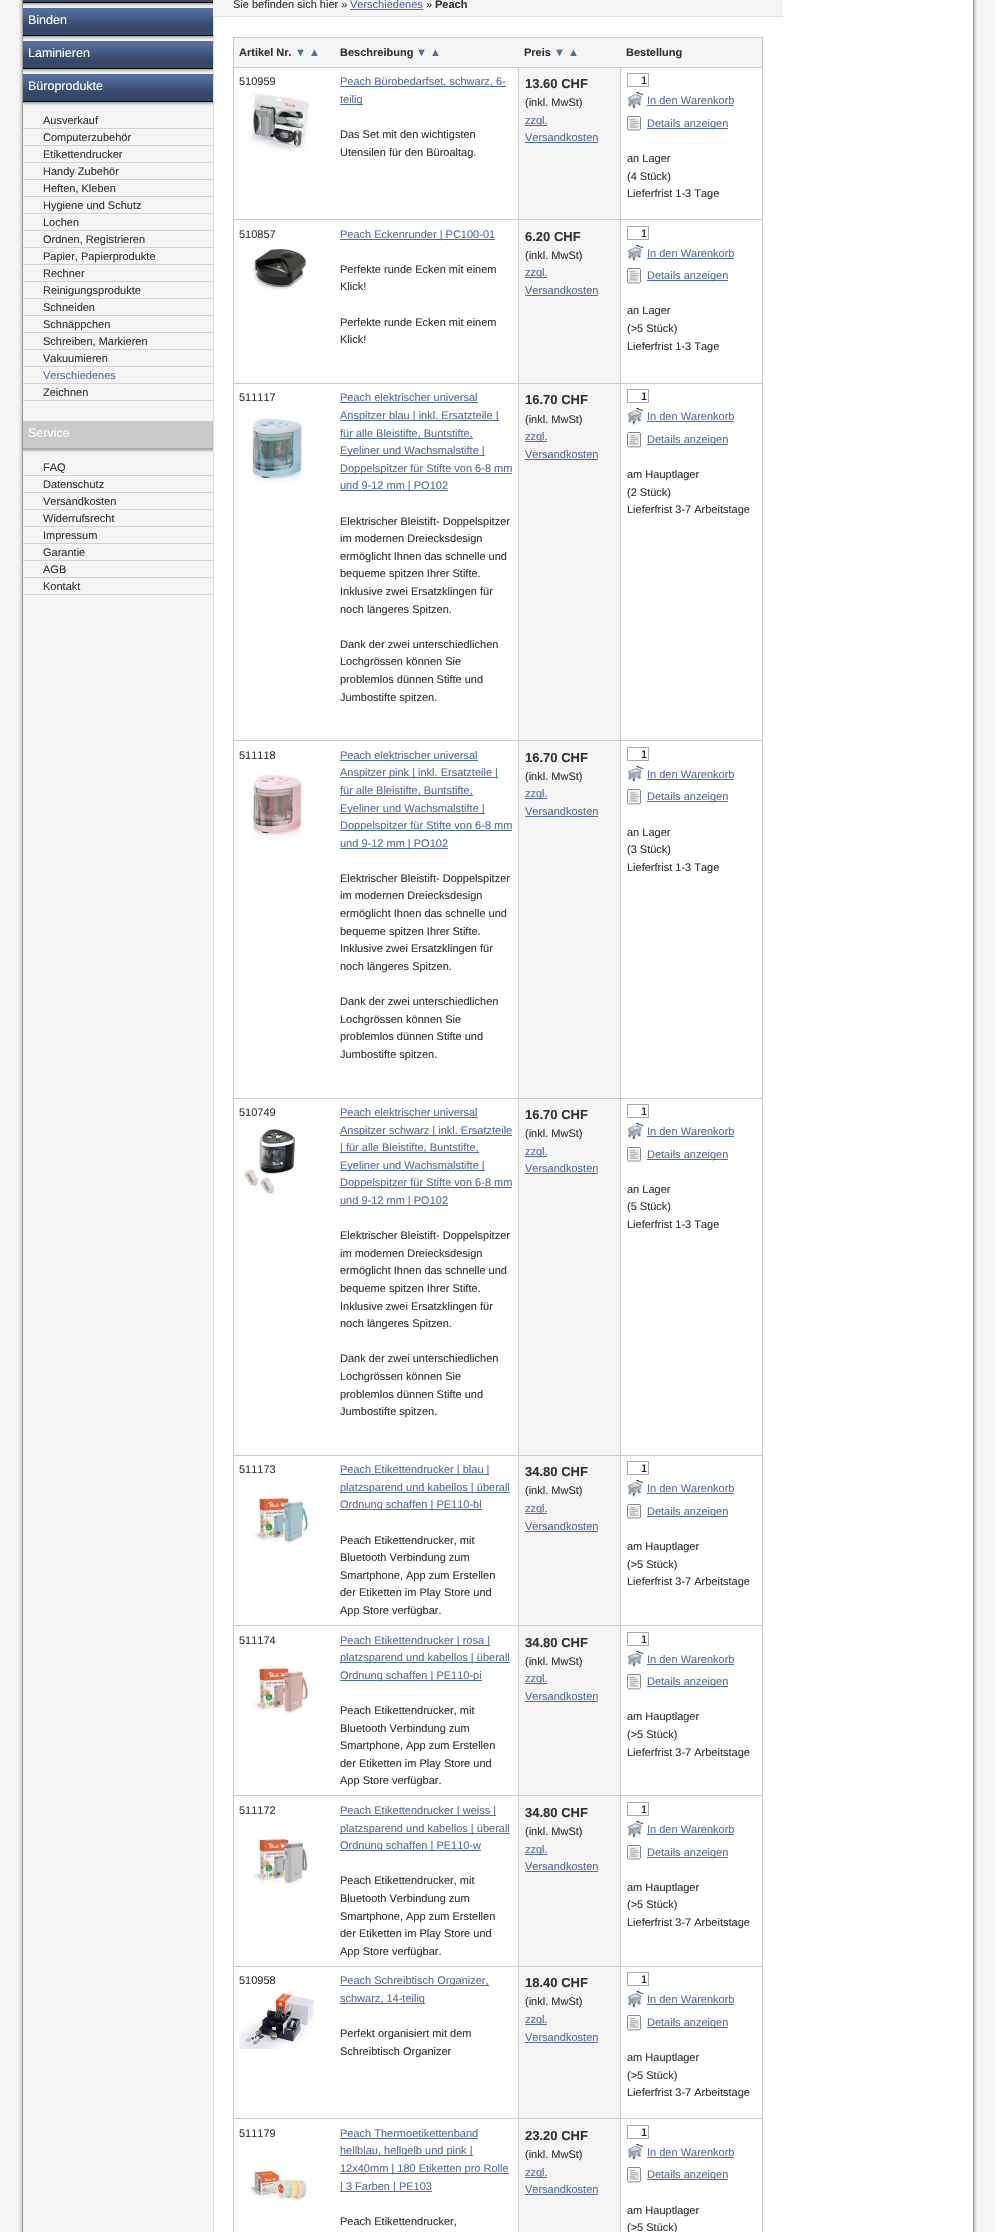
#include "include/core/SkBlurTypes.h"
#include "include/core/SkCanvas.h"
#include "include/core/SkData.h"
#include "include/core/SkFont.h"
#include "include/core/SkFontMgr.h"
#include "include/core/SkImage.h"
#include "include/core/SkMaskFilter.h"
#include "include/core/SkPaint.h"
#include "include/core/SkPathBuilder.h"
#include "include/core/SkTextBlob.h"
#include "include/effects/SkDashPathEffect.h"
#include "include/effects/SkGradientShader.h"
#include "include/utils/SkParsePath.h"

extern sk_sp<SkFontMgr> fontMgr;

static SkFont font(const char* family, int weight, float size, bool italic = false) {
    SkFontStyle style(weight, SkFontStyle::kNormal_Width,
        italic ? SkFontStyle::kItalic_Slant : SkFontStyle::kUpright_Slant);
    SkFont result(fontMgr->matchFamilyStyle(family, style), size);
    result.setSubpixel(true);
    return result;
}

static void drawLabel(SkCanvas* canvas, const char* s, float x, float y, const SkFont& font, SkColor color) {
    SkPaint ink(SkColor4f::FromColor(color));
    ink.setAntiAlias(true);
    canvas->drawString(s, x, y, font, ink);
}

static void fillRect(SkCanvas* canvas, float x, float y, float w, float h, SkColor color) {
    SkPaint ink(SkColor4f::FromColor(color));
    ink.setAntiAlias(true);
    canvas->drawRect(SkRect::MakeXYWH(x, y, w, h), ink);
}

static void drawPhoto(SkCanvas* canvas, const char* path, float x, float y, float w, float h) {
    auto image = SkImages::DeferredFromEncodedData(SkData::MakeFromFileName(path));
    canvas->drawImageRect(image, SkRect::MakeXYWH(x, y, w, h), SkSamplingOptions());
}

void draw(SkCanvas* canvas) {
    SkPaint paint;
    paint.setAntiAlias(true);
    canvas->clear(0xFFF5F5F5);
    drawPhoto(canvas, "assets/img1.png", 19, 0, 958, 2232);
    drawPhoto(canvas, "assets/img2.png", 23, 0, 190, 8);
    fillRect(canvas, 23, 8, 190, 4, 0xFF526D9E);
    drawPhoto(canvas, "assets/img3.png", 23, 12, 190, 29);
    SkFont font1 = font("Liberation Sans", 400, 12.5f);
    drawLabel(canvas, "Binden", 28, 24, font1, 0xFFFFFFFF);
    fillRect(canvas, 23, 41, 190, 4, 0xFF526D9E);
    drawPhoto(canvas, "assets/img3.png", 23, 45, 190, 29);
    drawLabel(canvas, "Laminieren", 28, 57, font1, 0xFFFFFFFF);
    fillRect(canvas, 23, 74, 190, 4, 0xFF526D9E);
    drawPhoto(canvas, "assets/img3.png", 23, 78, 190, 29);
    drawLabel(canvas, "Büroprodukte", 28, 90, font1, 0xFFFFFFFF);
    fillRect(canvas, 23, 128, 190, 1, 0xFFD2D2D2);
    SkFont font2 = font("Liberation Sans", 400, 11);
    drawLabel(canvas, "Ausverkauf", 43, 124, font2, 0xFF333333);
    fillRect(canvas, 23, 145, 190, 1, 0xFFD2D2D2);
    drawLabel(canvas, "Computerzubehör", 43, 141, font2, 0xFF333333);
    fillRect(canvas, 23, 162, 190, 1, 0xFFD2D2D2);
    drawLabel(canvas, "Etikettendrucker", 43, 158, font2, 0xFF333333);
    fillRect(canvas, 23, 179, 190, 1, 0xFFD2D2D2);
    drawLabel(canvas, "Handy Zubehör", 43, 175, font2, 0xFF333333);
    fillRect(canvas, 23, 196, 190, 1, 0xFFD2D2D2);
    drawLabel(canvas, "Heften, Kleben", 43, 192, font2, 0xFF333333);
    fillRect(canvas, 23, 213, 190, 1, 0xFFD2D2D2);
    drawLabel(canvas, "Hygiene und Schutz", 43, 209, font2, 0xFF333333);
    fillRect(canvas, 23, 230, 190, 1, 0xFFD2D2D2);
    drawLabel(canvas, "Lochen", 43, 226, font2, 0xFF333333);
    fillRect(canvas, 23, 247, 190, 1, 0xFFD2D2D2);
    drawLabel(canvas, "Ordnen, Registrieren", 43, 243, font2, 0xFF333333);
    fillRect(canvas, 23, 264, 190, 1, 0xFFD2D2D2);
    drawLabel(canvas, "Papier, Papierprodukte", 43, 260, font2, 0xFF333333);
    fillRect(canvas, 23, 281, 190, 1, 0xFFD2D2D2);
    drawLabel(canvas, "Rechner", 43, 277, font2, 0xFF333333);
    fillRect(canvas, 23, 298, 190, 1, 0xFFD2D2D2);
    drawLabel(canvas, "Reinigungsprodukte", 43, 294, font2, 0xFF333333);
    fillRect(canvas, 23, 315, 190, 1, 0xFFD2D2D2);
    drawLabel(canvas, "Schneiden", 43, 311, font2, 0xFF333333);
    fillRect(canvas, 23, 332, 190, 1, 0xFFD2D2D2);
    drawLabel(canvas, "Schnäppchen", 43, 328, font2, 0xFF333333);
    fillRect(canvas, 23, 349, 190, 1, 0xFFD2D2D2);
    drawLabel(canvas, "Schreiben, Markieren", 43, 345, font2, 0xFF333333);
    fillRect(canvas, 23, 366, 190, 1, 0xFFD2D2D2);
    drawLabel(canvas, "Vakuumieren", 43, 362, font2, 0xFF333333);
    fillRect(canvas, 23, 383, 190, 1, 0xFFD2D2D2);
    drawLabel(canvas, "Verschiedenes", 43, 379, font2, 0xFF526D9E);
    fillRect(canvas, 23, 400, 190, 1, 0xFFD2D2D2);
    drawLabel(canvas, "Zeichnen", 43, 396, font2, 0xFF333333);
    drawPhoto(canvas, "assets/img4.png", 23, 421, 190, 33);
    drawLabel(canvas, "Service", 28, 437, font1, 0xFFFFFFFF);
    fillRect(canvas, 23, 475, 190, 1, 0xFFD2D2D2);
    drawLabel(canvas, "FAQ", 43, 471, font2, 0xFF333333);
    fillRect(canvas, 23, 492, 190, 1, 0xFFD2D2D2);
    drawLabel(canvas, "Datenschutz", 43, 488, font2, 0xFF333333);
    fillRect(canvas, 23, 509, 190, 1, 0xFFD2D2D2);
    drawLabel(canvas, "Versandkosten", 43, 505, font2, 0xFF333333);
    fillRect(canvas, 23, 526, 190, 1, 0xFFD2D2D2);
    drawLabel(canvas, "Widerrufsrecht", 43, 522, font2, 0xFF333333);
    fillRect(canvas, 23, 543, 190, 1, 0xFFD2D2D2);
    drawLabel(canvas, "Impressum", 43, 539, font2, 0xFF333333);
    fillRect(canvas, 23, 560, 190, 1, 0xFFD2D2D2);
    drawLabel(canvas, "Garantie", 43, 556, font2, 0xFF333333);
    fillRect(canvas, 23, 577, 190, 1, 0xFFD2D2D2);
    drawLabel(canvas, "AGB", 43, 573, font2, 0xFF333333);
    fillRect(canvas, 23, 594, 190, 1, 0xFFD2D2D2);
    drawLabel(canvas, "Kontakt", 43, 590, font2, 0xFF333333);
    fillRect(canvas, 213, 0, 570, 16, 0xFFF5F5F5);
    fillRect(canvas, 213, 16, 570, 1, 0xFFDDDDDD);
    drawLabel(canvas, "Sie befinden sich hier »", 233, 8, font2, 0xFF333333);
    drawLabel(canvas, "Verschiedenes", 350, 8, font2, 0xFF526D9E);
    fillRect(canvas, 350, 9, 73, 1, 0xFF526D9E);
    drawLabel(canvas, "»", 426, 8, font2, 0xFF333333);
    SkFont font3 = font("Liberation Sans", 700, 11);
    drawLabel(canvas, "Peach", 435, 8, font3, 0xFF333333);
    fillRect(canvas, 233, 37, 530, 1, 0xFFCCCCCC);
    fillRect(canvas, 762, 37, 1, 2195, 0xFFCCCCCC);
    fillRect(canvas, 233, 37, 1, 2195, 0xFFCCCCCC);
    fillRect(canvas, 234, 38, 528, 29, 0xFFF5F5F5);
    drawLabel(canvas, "Artikel Nr.", 239, 56, font3, 0xFF333333);
    drawLabel(canvas, "▼ ▲", 295, 56, font3, 0xFF526D9E);
    drawLabel(canvas, "Beschreibung", 340, 56, font3, 0xFF333333);
    drawLabel(canvas, "▼ ▲", 416, 56, font3, 0xFF526D9E);
    drawLabel(canvas, "Preis", 524, 56, font3, 0xFF333333);
    drawLabel(canvas, "▼ ▲", 554, 56, font3, 0xFF526D9E);
    fillRect(canvas, 620, 2118, 1, 114, 0xFFCCCCCC);
    fillRect(canvas, 620, 2118, 143, 1, 0xFFCCCCCC);
    fillRect(canvas, 620, 1966, 1, 153, 0xFFCCCCCC);
    fillRect(canvas, 620, 1966, 143, 1, 0xFFCCCCCC);
    fillRect(canvas, 620, 1795, 1, 172, 0xFFCCCCCC);
    fillRect(canvas, 620, 1795, 143, 1, 0xFFCCCCCC);
    fillRect(canvas, 620, 1625, 1, 171, 0xFFCCCCCC);
    fillRect(canvas, 620, 1625, 143, 1, 0xFFCCCCCC);
    fillRect(canvas, 620, 1455, 1, 171, 0xFFCCCCCC);
    fillRect(canvas, 620, 1455, 143, 1, 0xFFCCCCCC);
    fillRect(canvas, 620, 1098, 1, 358, 0xFFCCCCCC);
    fillRect(canvas, 620, 1098, 143, 1, 0xFFCCCCCC);
    fillRect(canvas, 620, 740, 1, 359, 0xFFCCCCCC);
    fillRect(canvas, 620, 740, 143, 1, 0xFFCCCCCC);
    fillRect(canvas, 620, 383, 1, 358, 0xFFCCCCCC);
    fillRect(canvas, 620, 383, 143, 1, 0xFFCCCCCC);
    fillRect(canvas, 620, 219, 1, 165, 0xFFCCCCCC);
    fillRect(canvas, 620, 219, 143, 1, 0xFFCCCCCC);
    fillRect(canvas, 620, 67, 1, 153, 0xFFCCCCCC);
    fillRect(canvas, 518, 2118, 1, 114, 0xFFCCCCCC);
    fillRect(canvas, 518, 2118, 103, 1, 0xFFCCCCCC);
    fillRect(canvas, 518, 1966, 1, 153, 0xFFCCCCCC);
    fillRect(canvas, 518, 1966, 103, 1, 0xFFCCCCCC);
    fillRect(canvas, 518, 1795, 1, 172, 0xFFCCCCCC);
    fillRect(canvas, 518, 1795, 103, 1, 0xFFCCCCCC);
    fillRect(canvas, 518, 1625, 1, 171, 0xFFCCCCCC);
    fillRect(canvas, 518, 1625, 103, 1, 0xFFCCCCCC);
    fillRect(canvas, 518, 1455, 1, 171, 0xFFCCCCCC);
    fillRect(canvas, 518, 1455, 103, 1, 0xFFCCCCCC);
    fillRect(canvas, 518, 1098, 1, 358, 0xFFCCCCCC);
    fillRect(canvas, 518, 1098, 103, 1, 0xFFCCCCCC);
    fillRect(canvas, 518, 740, 1, 359, 0xFFCCCCCC);
    fillRect(canvas, 518, 740, 103, 1, 0xFFCCCCCC);
    fillRect(canvas, 518, 383, 1, 358, 0xFFCCCCCC);
    fillRect(canvas, 518, 383, 103, 1, 0xFFCCCCCC);
    fillRect(canvas, 518, 219, 1, 165, 0xFFCCCCCC);
    fillRect(canvas, 518, 219, 103, 1, 0xFFCCCCCC);
    fillRect(canvas, 518, 67, 1, 153, 0xFFCCCCCC);
    fillRect(canvas, 233, 67, 530, 1, 0xFFCCCCCC);
    drawLabel(canvas, "Bestellung", 626, 56, font3, 0xFF333333);
    drawLabel(canvas, "510959", 239, 85, font2, 0xFF333333);
    drawPhoto(canvas, "assets/img5.png", 247, 93, 64, 58);
    fillRect(canvas, 233, 219, 286, 1, 0xFFCCCCCC);
    fillRect(canvas, 340, 86, 166, 1, 0xFF526D9E);
    drawLabel(canvas, "Peach Bürobedarfset, schwarz, 6-", 340, 85, font2, 0xFF526D9E);
    fillRect(canvas, 340, 104, 23, 1, 0xFF526D9E);
    drawLabel(canvas, "teilig", 340, 103, font2, 0xFF526D9E);
    drawLabel(canvas, "Das Set mit den wichtigsten", 340, 138, font2, 0xFF333333);
    drawLabel(canvas, "Utensilen für den Büroaltag.", 340, 156, font2, 0xFF333333);
    fillRect(canvas, 519, 68, 101, 151, 0xFFF5F5F5);
    SkFont font4 = font("Liberation Sans", 700, 13);
    drawLabel(canvas, "13.60 CHF", 525, 88, font4, 0xFF333333);
    drawLabel(canvas, "(inkl. MwSt)", 525, 106, font2, 0xFF333333);
    fillRect(canvas, 525, 125, 22, 1, 0xFF526D9E);
    drawLabel(canvas, "zzgl.", 525, 124, font2, 0xFF526D9E);
    drawLabel(canvas, "Versandkosten", 525, 141, font2, 0xFF526D9E);
    fillRect(canvas, 525, 142, 73, 1, 0xFF526D9E);
    paint.setStroke(true);
    paint.setStrokeWidth(1);
    paint.setColor(0xFFAAAAAA);
    canvas->drawRect(SkRect::MakeXYWH(627.5f, 73.5f, 21, 13), paint);
    drawLabel(canvas, "1", 641, 84, font2, 0xFF000000);
    drawPhoto(canvas, "assets/img6.png", 628, 92, 15, 17);
    drawLabel(canvas, "In den Warenkorb", 647, 104, font2, 0xFF526D9E);
    fillRect(canvas, 647, 105, 87, 1, 0xFF526D9E);
    drawPhoto(canvas, "assets/img7.png", 627, 116, 14, 15);
    fillRect(canvas, 647, 128, 81, 1, 0xFF526D9E);
    drawLabel(canvas, "Details anzeigen", 647, 127, font2, 0xFF526D9E);
    drawLabel(canvas, "an Lager", 627, 162, font2, 0xFF333333);
    drawLabel(canvas, "(4 Stück)", 627, 180, font2, 0xFF333333);
    drawLabel(canvas, "Lieferfrist 1-3 Tage", 627, 197, font2, 0xFF333333);
    drawLabel(canvas, "510857", 239, 238, font2, 0xFF333333);
    drawPhoto(canvas, "assets/img8.png", 252, 249, 54, 41);
    fillRect(canvas, 233, 383, 286, 1, 0xFFCCCCCC);
    fillRect(canvas, 340, 239, 155, 1, 0xFF526D9E);
    drawLabel(canvas, "Peach Eckenrunder | PC100-01", 340, 238, font2, 0xFF526D9E);
    drawLabel(canvas, "Perfekte runde Ecken mit einem", 340, 273, font2, 0xFF333333);
    drawLabel(canvas, "Klick!", 340, 290, font2, 0xFF333333);
    drawLabel(canvas, "Perfekte runde Ecken mit einem", 340, 326, font2, 0xFF333333);
    drawLabel(canvas, "Klick!", 340, 343, font2, 0xFF333333);
    fillRect(canvas, 519, 220, 101, 163, 0xFFF5F5F5);
    drawLabel(canvas, "6.20 CHF", 525, 241, font4, 0xFF333333);
    drawLabel(canvas, "(inkl. MwSt)", 525, 259, font2, 0xFF333333);
    fillRect(canvas, 525, 277, 22, 1, 0xFF526D9E);
    drawLabel(canvas, "zzgl.", 525, 276, font2, 0xFF526D9E);
    drawLabel(canvas, "Versandkosten", 525, 294, font2, 0xFF526D9E);
    fillRect(canvas, 525, 295, 73, 1, 0xFF526D9E);
    canvas->drawRect(SkRect::MakeXYWH(627.5f, 226.5f, 21, 13), paint);
    drawLabel(canvas, "1", 641, 237, font2, 0xFF000000);
    drawPhoto(canvas, "assets/img9.png", 628, 245, 15, 16);
    drawLabel(canvas, "In den Warenkorb", 647, 257, font2, 0xFF526D9E);
    fillRect(canvas, 647, 258, 87, 1, 0xFF526D9E);
    drawPhoto(canvas, "assets/img10.png", 627, 268, 14, 16);
    fillRect(canvas, 647, 280, 81, 1, 0xFF526D9E);
    drawLabel(canvas, "Details anzeigen", 647, 279, font2, 0xFF526D9E);
    drawLabel(canvas, "an Lager", 627, 314, font2, 0xFF333333);
    drawLabel(canvas, "(>5 Stück)", 627, 332, font2, 0xFF333333);
    drawLabel(canvas, "Lieferfrist 1-3 Tage", 627, 350, font2, 0xFF333333);
    drawLabel(canvas, "511117", 239, 401, font2, 0xFF333333);
    drawPhoto(canvas, "assets/img11.png", 252, 418, 51, 65);
    fillRect(canvas, 233, 740, 286, 1, 0xFFCCCCCC);
    drawLabel(canvas, "Peach elektrischer universal", 340, 401, font2, 0xFF526D9E);
    fillRect(canvas, 340, 402, 138, 1, 0xFF526D9E);
    fillRect(canvas, 340, 420, 159, 1, 0xFF526D9E);
    drawLabel(canvas, "Anspitzer blau | inkl. Ersatzteile |", 340, 419, font2, 0xFF526D9E);
    fillRect(canvas, 340, 438, 133, 1, 0xFF526D9E);
    drawLabel(canvas, "für alle Bleistifte, Buntstifte,", 340, 437, font2, 0xFF526D9E);
    fillRect(canvas, 340, 455, 145, 1, 0xFF526D9E);
    drawLabel(canvas, "Eyeliner und Wachsmalstifte |", 340, 454, font2, 0xFF526D9E);
    fillRect(canvas, 340, 473, 172, 1, 0xFF526D9E);
    drawLabel(canvas, "Doppelspitzer für Stifte von 6-8 mm", 340, 472, font2, 0xFF526D9E);
    fillRect(canvas, 340, 490, 108, 1, 0xFF526D9E);
    drawLabel(canvas, "und 9-12 mm | PO102", 340, 489, font2, 0xFF526D9E);
    drawLabel(canvas, "Elektrischer Bleistift- Doppelspitzer", 340, 525, font2, 0xFF333333);
    drawLabel(canvas, "im modernen Dreiecksdesign", 340, 542, font2, 0xFF333333);
    drawLabel(canvas, "ermöglicht Ihnen das schnelle und", 340, 560, font2, 0xFF333333);
    drawLabel(canvas, "bequeme spitzen Ihrer Stifte.", 340, 577, font2, 0xFF333333);
    drawLabel(canvas, "Inklusive zwei Ersatzklingen für", 340, 595, font2, 0xFF333333);
    drawLabel(canvas, "noch längeres Spitzen.", 340, 613, font2, 0xFF333333);
    drawLabel(canvas, "Dank der zwei unterschiedlichen", 340, 648, font2, 0xFF333333);
    drawLabel(canvas, "Lochgrössen können Sie", 340, 665, font2, 0xFF333333);
    drawLabel(canvas, "problemlos dünnen Stifte und", 340, 683, font2, 0xFF333333);
    drawLabel(canvas, "Jumbostifte spitzen.", 340, 701, font2, 0xFF333333);
    fillRect(canvas, 519, 384, 101, 356, 0xFFF5F5F5);
    drawLabel(canvas, "16.70 CHF", 525, 404, font4, 0xFF333333);
    drawLabel(canvas, "(inkl. MwSt)", 525, 423, font2, 0xFF333333);
    fillRect(canvas, 525, 441, 22, 1, 0xFF526D9E);
    drawLabel(canvas, "zzgl.", 525, 440, font2, 0xFF526D9E);
    drawLabel(canvas, "Versandkosten", 525, 458, font2, 0xFF526D9E);
    fillRect(canvas, 525, 459, 73, 1, 0xFF526D9E);
    canvas->drawRect(SkRect::MakeXYWH(627.5f, 389.5f, 21, 13), paint);
    drawLabel(canvas, "1", 641, 400, font2, 0xFF000000);
    drawPhoto(canvas, "assets/img6.png", 628, 408, 15, 17);
    drawLabel(canvas, "In den Warenkorb", 647, 420, font2, 0xFF526D9E);
    fillRect(canvas, 647, 421, 87, 1, 0xFF526D9E);
    drawPhoto(canvas, "assets/img10.png", 627, 432, 14, 16);
    fillRect(canvas, 647, 444, 81, 1, 0xFF526D9E);
    drawLabel(canvas, "Details anzeigen", 647, 443, font2, 0xFF526D9E);
    drawLabel(canvas, "am Hauptlager", 627, 478, font2, 0xFF333333);
    drawLabel(canvas, "(2 Stück)", 627, 496, font2, 0xFF333333);
    drawLabel(canvas, "Lieferfrist 3-7 Arbeitstage", 627, 513, font2, 0xFF333333);
    drawLabel(canvas, "511118", 239, 759, font2, 0xFF333333);
    drawPhoto(canvas, "assets/img12.png", 252, 774, 50, 65);
    fillRect(canvas, 233, 1098, 286, 1, 0xFFCCCCCC);
    drawLabel(canvas, "Peach elektrischer universal", 340, 759, font2, 0xFF526D9E);
    fillRect(canvas, 340, 760, 138, 1, 0xFF526D9E);
    fillRect(canvas, 340, 777, 158, 1, 0xFF526D9E);
    drawLabel(canvas, "Anspitzer pink | inkl. Ersatzteile |", 340, 776, font2, 0xFF526D9E);
    fillRect(canvas, 340, 795, 133, 1, 0xFF526D9E);
    drawLabel(canvas, "für alle Bleistifte, Buntstifte,", 340, 794, font2, 0xFF526D9E);
    fillRect(canvas, 340, 813, 145, 1, 0xFF526D9E);
    drawLabel(canvas, "Eyeliner und Wachsmalstifte |", 340, 812, font2, 0xFF526D9E);
    fillRect(canvas, 340, 830, 172, 1, 0xFF526D9E);
    drawLabel(canvas, "Doppelspitzer für Stifte von 6-8 mm", 340, 829, font2, 0xFF526D9E);
    fillRect(canvas, 340, 848, 108, 1, 0xFF526D9E);
    drawLabel(canvas, "und 9-12 mm | PO102", 340, 847, font2, 0xFF526D9E);
    drawLabel(canvas, "Elektrischer Bleistift- Doppelspitzer", 340, 882, font2, 0xFF333333);
    drawLabel(canvas, "im modernen Dreiecksdesign", 340, 899, font2, 0xFF333333);
    drawLabel(canvas, "ermöglicht Ihnen das schnelle und", 340, 917, font2, 0xFF333333);
    drawLabel(canvas, "bequeme spitzen Ihrer Stifte.", 340, 935, font2, 0xFF333333);
    drawLabel(canvas, "Inklusive zwei Ersatzklingen für", 340, 952, font2, 0xFF333333);
    drawLabel(canvas, "noch längeres Spitzen.", 340, 970, font2, 0xFF333333);
    drawLabel(canvas, "Dank der zwei unterschiedlichen", 340, 1005, font2, 0xFF333333);
    drawLabel(canvas, "Lochgrössen können Sie", 340, 1023, font2, 0xFF333333);
    drawLabel(canvas, "problemlos dünnen Stifte und", 340, 1040, font2, 0xFF333333);
    drawLabel(canvas, "Jumbostifte spitzen.", 340, 1058, font2, 0xFF333333);
    fillRect(canvas, 519, 741, 101, 357, 0xFFF5F5F5);
    drawLabel(canvas, "16.70 CHF", 525, 762, font4, 0xFF333333);
    drawLabel(canvas, "(inkl. MwSt)", 525, 780, font2, 0xFF333333);
    fillRect(canvas, 525, 798, 22, 1, 0xFF526D9E);
    drawLabel(canvas, "zzgl.", 525, 797, font2, 0xFF526D9E);
    drawLabel(canvas, "Versandkosten", 525, 815, font2, 0xFF526D9E);
    fillRect(canvas, 525, 816, 73, 1, 0xFF526D9E);
    canvas->drawRect(SkRect::MakeXYWH(627.5f, 747.5f, 21, 13), paint);
    drawLabel(canvas, "1", 641, 758, font2, 0xFF000000);
    drawPhoto(canvas, "assets/img9.png", 628, 766, 15, 16);
    drawLabel(canvas, "In den Warenkorb", 647, 778, font2, 0xFF526D9E);
    fillRect(canvas, 647, 779, 87, 1, 0xFF526D9E);
    drawPhoto(canvas, "assets/img10.png", 627, 789, 14, 16);
    fillRect(canvas, 647, 801, 81, 1, 0xFF526D9E);
    drawLabel(canvas, "Details anzeigen", 647, 800, font2, 0xFF526D9E);
    drawLabel(canvas, "an Lager", 627, 836, font2, 0xFF333333);
    drawLabel(canvas, "(3 Stück)", 627, 853, font2, 0xFF333333);
    drawLabel(canvas, "Lieferfrist 1-3 Tage", 627, 871, font2, 0xFF333333);
    drawLabel(canvas, "510749", 239, 1116, font2, 0xFF333333);
    drawPhoto(canvas, "assets/img13.png", 244, 1129, 51, 66);
    fillRect(canvas, 233, 1455, 286, 1, 0xFFCCCCCC);
    drawLabel(canvas, "Peach elektrischer universal", 340, 1116, font2, 0xFF526D9E);
    fillRect(canvas, 340, 1117, 138, 1, 0xFF526D9E);
    fillRect(canvas, 340, 1135, 172, 1, 0xFF526D9E);
    drawLabel(canvas, "Anspitzer schwarz | inkl. Ersatzteile", 340, 1134, font2, 0xFF526D9E);
    fillRect(canvas, 340, 1152, 139, 1, 0xFF526D9E);
    drawLabel(canvas, "| für alle Bleistifte, Buntstifte,", 340, 1151, font2, 0xFF526D9E);
    fillRect(canvas, 340, 1170, 145, 1, 0xFF526D9E);
    drawLabel(canvas, "Eyeliner und Wachsmalstifte |", 340, 1169, font2, 0xFF526D9E);
    fillRect(canvas, 340, 1187, 172, 1, 0xFF526D9E);
    drawLabel(canvas, "Doppelspitzer für Stifte von 6-8 mm", 340, 1186, font2, 0xFF526D9E);
    fillRect(canvas, 340, 1205, 108, 1, 0xFF526D9E);
    drawLabel(canvas, "und 9-12 mm | PO102", 340, 1204, font2, 0xFF526D9E);
    drawLabel(canvas, "Elektrischer Bleistift- Doppelspitzer", 340, 1239, font2, 0xFF333333);
    drawLabel(canvas, "im modernen Dreiecksdesign", 340, 1257, font2, 0xFF333333);
    drawLabel(canvas, "ermöglicht Ihnen das schnelle und", 340, 1274, font2, 0xFF333333);
    drawLabel(canvas, "bequeme spitzen Ihrer Stifte.", 340, 1292, font2, 0xFF333333);
    drawLabel(canvas, "Inklusive zwei Ersatzklingen für", 340, 1310, font2, 0xFF333333);
    drawLabel(canvas, "noch längeres Spitzen.", 340, 1327, font2, 0xFF333333);
    drawLabel(canvas, "Dank der zwei unterschiedlichen", 340, 1362, font2, 0xFF333333);
    drawLabel(canvas, "Lochgrössen können Sie", 340, 1380, font2, 0xFF333333);
    drawLabel(canvas, "problemlos dünnen Stifte und", 340, 1398, font2, 0xFF333333);
    drawLabel(canvas, "Jumbostifte spitzen.", 340, 1415, font2, 0xFF333333);
    fillRect(canvas, 519, 1099, 101, 356, 0xFFF5F5F5);
    drawLabel(canvas, "16.70 CHF", 525, 1119, font4, 0xFF333333);
    drawLabel(canvas, "(inkl. MwSt)", 525, 1137, font2, 0xFF333333);
    fillRect(canvas, 525, 1156, 22, 1, 0xFF526D9E);
    drawLabel(canvas, "zzgl.", 525, 1155, font2, 0xFF526D9E);
    drawLabel(canvas, "Versandkosten", 525, 1172, font2, 0xFF526D9E);
    fillRect(canvas, 525, 1173, 73, 1, 0xFF526D9E);
    canvas->drawRect(SkRect::MakeXYWH(627.5f, 1104.5f, 21, 13), paint);
    drawLabel(canvas, "1", 641, 1115, font2, 0xFF000000);
    drawPhoto(canvas, "assets/img6.png", 628, 1123, 15, 17);
    drawLabel(canvas, "In den Warenkorb", 647, 1135, font2, 0xFF526D9E);
    fillRect(canvas, 647, 1136, 87, 1, 0xFF526D9E);
    drawPhoto(canvas, "assets/img7.png", 627, 1147, 14, 15);
    fillRect(canvas, 647, 1159, 81, 1, 0xFF526D9E);
    drawLabel(canvas, "Details anzeigen", 647, 1158, font2, 0xFF526D9E);
    drawLabel(canvas, "an Lager", 627, 1193, font2, 0xFF333333);
    drawLabel(canvas, "(5 Stück)", 627, 1210, font2, 0xFF333333);
    drawLabel(canvas, "Lieferfrist 1-3 Tage", 627, 1228, font2, 0xFF333333);
    drawLabel(canvas, "511173", 239, 1473, font2, 0xFF333333);
    drawPhoto(canvas, "assets/img14.png", 252, 1496, 57, 48);
    fillRect(canvas, 233, 1625, 286, 1, 0xFFCCCCCC);
    fillRect(canvas, 340, 1474, 149, 1, 0xFF526D9E);
    drawLabel(canvas, "Peach Etikettendrucker | blau |", 340, 1473, font2, 0xFF526D9E);
    fillRect(canvas, 340, 1492, 170, 1, 0xFF526D9E);
    drawLabel(canvas, "platzsparend und kabellos | überall", 340, 1491, font2, 0xFF526D9E);
    fillRect(canvas, 340, 1509, 142, 1, 0xFF526D9E);
    drawLabel(canvas, "Ordnung schaffen | PE110-bl", 340, 1508, font2, 0xFF526D9E);
    drawLabel(canvas, "Peach Etikettendrucker, mit", 340, 1544, font2, 0xFF333333);
    drawLabel(canvas, "Bluetooth Verbindung zum", 340, 1561, font2, 0xFF333333);
    drawLabel(canvas, "Smartphone, App zum Erstellen", 340, 1579, font2, 0xFF333333);
    drawLabel(canvas, "der Etiketten im Play Store und", 340, 1596, font2, 0xFF333333);
    drawLabel(canvas, "App Store verfügbar.", 340, 1614, font2, 0xFF333333);
    fillRect(canvas, 519, 1456, 101, 169, 0xFFF5F5F5);
    drawLabel(canvas, "34.80 CHF", 525, 1476, font4, 0xFF333333);
    drawLabel(canvas, "(inkl. MwSt)", 525, 1494, font2, 0xFF333333);
    fillRect(canvas, 525, 1513, 22, 1, 0xFF526D9E);
    drawLabel(canvas, "zzgl.", 525, 1512, font2, 0xFF526D9E);
    drawLabel(canvas, "Versandkosten", 525, 1530, font2, 0xFF526D9E);
    fillRect(canvas, 525, 1531, 73, 1, 0xFF526D9E);
    canvas->drawRect(SkRect::MakeXYWH(627.5f, 1461.5f, 21, 13), paint);
    drawLabel(canvas, "1", 641, 1472, font2, 0xFF000000);
    drawPhoto(canvas, "assets/img6.png", 628, 1480, 15, 17);
    drawLabel(canvas, "In den Warenkorb", 647, 1492, font2, 0xFF526D9E);
    fillRect(canvas, 647, 1493, 87, 1, 0xFF526D9E);
    drawPhoto(canvas, "assets/img7.png", 627, 1504, 14, 15);
    fillRect(canvas, 647, 1516, 81, 1, 0xFF526D9E);
    drawLabel(canvas, "Details anzeigen", 647, 1515, font2, 0xFF526D9E);
    drawLabel(canvas, "am Hauptlager", 627, 1550, font2, 0xFF333333);
    drawLabel(canvas, "(>5 Stück)", 627, 1568, font2, 0xFF333333);
    drawLabel(canvas, "Lieferfrist 3-7 Arbeitstage", 627, 1585, font2, 0xFF333333);
    drawLabel(canvas, "511174", 239, 1644, font2, 0xFF333333);
    drawPhoto(canvas, "assets/img15.png", 251, 1666, 58, 48);
    fillRect(canvas, 233, 1795, 286, 1, 0xFFCCCCCC);
    fillRect(canvas, 340, 1645, 150, 1, 0xFF526D9E);
    drawLabel(canvas, "Peach Etikettendrucker | rosa |", 340, 1644, font2, 0xFF526D9E);
    fillRect(canvas, 340, 1662, 170, 1, 0xFF526D9E);
    drawLabel(canvas, "platzsparend und kabellos | überall", 340, 1661, font2, 0xFF526D9E);
    fillRect(canvas, 340, 1680, 142, 1, 0xFF526D9E);
    drawLabel(canvas, "Ordnung schaffen | PE110-pi", 340, 1679, font2, 0xFF526D9E);
    drawLabel(canvas, "Peach Etikettendrucker, mit", 340, 1714, font2, 0xFF333333);
    drawLabel(canvas, "Bluetooth Verbindung zum", 340, 1732, font2, 0xFF333333);
    drawLabel(canvas, "Smartphone, App zum Erstellen", 340, 1749, font2, 0xFF333333);
    drawLabel(canvas, "der Etiketten im Play Store und", 340, 1767, font2, 0xFF333333);
    drawLabel(canvas, "App Store verfügbar.", 340, 1784, font2, 0xFF333333);
    fillRect(canvas, 519, 1626, 101, 169, 0xFFF5F5F5);
    drawLabel(canvas, "34.80 CHF", 525, 1647, font4, 0xFF333333);
    drawLabel(canvas, "(inkl. MwSt)", 525, 1665, font2, 0xFF333333);
    fillRect(canvas, 525, 1683, 22, 1, 0xFF526D9E);
    drawLabel(canvas, "zzgl.", 525, 1682, font2, 0xFF526D9E);
    drawLabel(canvas, "Versandkosten", 525, 1700, font2, 0xFF526D9E);
    fillRect(canvas, 525, 1701, 73, 1, 0xFF526D9E);
    canvas->drawRect(SkRect::MakeXYWH(627.5f, 1632.5f, 21, 13), paint);
    drawLabel(canvas, "1", 641, 1643, font2, 0xFF000000);
    drawPhoto(canvas, "assets/img9.png", 628, 1651, 15, 16);
    drawLabel(canvas, "In den Warenkorb", 647, 1663, font2, 0xFF526D9E);
    fillRect(canvas, 647, 1664, 87, 1, 0xFF526D9E);
    drawPhoto(canvas, "assets/img10.png", 627, 1674, 14, 16);
    fillRect(canvas, 647, 1686, 81, 1, 0xFF526D9E);
    drawLabel(canvas, "Details anzeigen", 647, 1685, font2, 0xFF526D9E);
    drawLabel(canvas, "am Hauptlager", 627, 1720, font2, 0xFF333333);
    drawLabel(canvas, "(>5 Stück)", 627, 1738, font2, 0xFF333333);
    drawLabel(canvas, "Lieferfrist 3-7 Arbeitstage", 627, 1756, font2, 0xFF333333);
    drawLabel(canvas, "511172", 239, 1814, font2, 0xFF333333);
    drawPhoto(canvas, "assets/img16.png", 252, 1837, 55, 48);
    fillRect(canvas, 233, 1966, 286, 1, 0xFFCCCCCC);
    fillRect(canvas, 340, 1815, 156, 1, 0xFF526D9E);
    drawLabel(canvas, "Peach Etikettendrucker | weiss |", 340, 1814, font2, 0xFF526D9E);
    fillRect(canvas, 340, 1833, 170, 1, 0xFF526D9E);
    drawLabel(canvas, "platzsparend und kabellos | überall", 340, 1832, font2, 0xFF526D9E);
    fillRect(canvas, 340, 1850, 141, 1, 0xFF526D9E);
    drawLabel(canvas, "Ordnung schaffen | PE110-w", 340, 1849, font2, 0xFF526D9E);
    drawLabel(canvas, "Peach Etikettendrucker, mit", 340, 1884, font2, 0xFF333333);
    drawLabel(canvas, "Bluetooth Verbindung zum", 340, 1902, font2, 0xFF333333);
    drawLabel(canvas, "Smartphone, App zum Erstellen", 340, 1920, font2, 0xFF333333);
    drawLabel(canvas, "der Etiketten im Play Store und", 340, 1937, font2, 0xFF333333);
    drawLabel(canvas, "App Store verfügbar.", 340, 1955, font2, 0xFF333333);
    fillRect(canvas, 519, 1796, 101, 170, 0xFFF5F5F5);
    drawLabel(canvas, "34.80 CHF", 525, 1817, font4, 0xFF333333);
    drawLabel(canvas, "(inkl. MwSt)", 525, 1835, font2, 0xFF333333);
    fillRect(canvas, 525, 1854, 22, 1, 0xFF526D9E);
    drawLabel(canvas, "zzgl.", 525, 1853, font2, 0xFF526D9E);
    drawLabel(canvas, "Versandkosten", 525, 1870, font2, 0xFF526D9E);
    fillRect(canvas, 525, 1871, 73, 1, 0xFF526D9E);
    canvas->drawRect(SkRect::MakeXYWH(627.5f, 1802.5f, 21, 13), paint);
    drawLabel(canvas, "1", 641, 1813, font2, 0xFF000000);
    drawPhoto(canvas, "assets/img6.png", 628, 1821, 15, 17);
    drawLabel(canvas, "In den Warenkorb", 647, 1833, font2, 0xFF526D9E);
    fillRect(canvas, 647, 1834, 87, 1, 0xFF526D9E);
    drawPhoto(canvas, "assets/img7.png", 627, 1845, 14, 15);
    fillRect(canvas, 647, 1857, 81, 1, 0xFF526D9E);
    drawLabel(canvas, "Details anzeigen", 647, 1856, font2, 0xFF526D9E);
    drawLabel(canvas, "am Hauptlager", 627, 1891, font2, 0xFF333333);
    drawLabel(canvas, "(>5 Stück)", 627, 1908, font2, 0xFF333333);
    drawLabel(canvas, "Lieferfrist 3-7 Arbeitstage", 627, 1926, font2, 0xFF333333);
    drawLabel(canvas, "510958", 239, 1984, font2, 0xFF333333);
    drawPhoto(canvas, "assets/img17.png", 239, 1992, 75, 57);
    fillRect(canvas, 233, 2118, 286, 1, 0xFFCCCCCC);
    fillRect(canvas, 340, 1985, 149, 1, 0xFF526D9E);
    drawLabel(canvas, "Peach Schreibtisch Organizer,", 340, 1984, font2, 0xFF526D9E);
    fillRect(canvas, 340, 2003, 85, 1, 0xFF526D9E);
    drawLabel(canvas, "schwarz, 14-teilig", 340, 2002, font2, 0xFF526D9E);
    drawLabel(canvas, "Perfekt organisiert mit dem", 340, 2037, font2, 0xFF333333);
    drawLabel(canvas, "Schreibtisch Organizer", 340, 2055, font2, 0xFF333333);
    fillRect(canvas, 519, 1967, 101, 151, 0xFFF5F5F5);
    drawLabel(canvas, "18.40 CHF", 525, 1987, font4, 0xFF333333);
    drawLabel(canvas, "(inkl. MwSt)", 525, 2005, font2, 0xFF333333);
    fillRect(canvas, 525, 2024, 22, 1, 0xFF526D9E);
    drawLabel(canvas, "zzgl.", 525, 2023, font2, 0xFF526D9E);
    drawLabel(canvas, "Versandkosten", 525, 2041, font2, 0xFF526D9E);
    fillRect(canvas, 525, 2042, 73, 1, 0xFF526D9E);
    canvas->drawRect(SkRect::MakeXYWH(627.5f, 1972.5f, 21, 13), paint);
    drawLabel(canvas, "1", 641, 1983, font2, 0xFF000000);
    drawPhoto(canvas, "assets/img6.png", 628, 1991, 15, 17);
    drawLabel(canvas, "In den Warenkorb", 647, 2003, font2, 0xFF526D9E);
    fillRect(canvas, 647, 2004, 87, 1, 0xFF526D9E);
    drawPhoto(canvas, "assets/img10.png", 627, 2015, 14, 16);
    fillRect(canvas, 647, 2027, 81, 1, 0xFF526D9E);
    drawLabel(canvas, "Details anzeigen", 647, 2026, font2, 0xFF526D9E);
    drawLabel(canvas, "am Hauptlager", 627, 2061, font2, 0xFF333333);
    drawLabel(canvas, "(>5 Stück)", 627, 2079, font2, 0xFF333333);
    drawLabel(canvas, "Lieferfrist 3-7 Arbeitstage", 627, 2096, font2, 0xFF333333);
    drawLabel(canvas, "511179", 239, 2137, font2, 0xFF333333);
    drawPhoto(canvas, "assets/img18.png", 248, 2169, 59, 32);
    drawLabel(canvas, "Peach Thermoetikettenband", 340, 2137, font2, 0xFF526D9E);
    fillRect(canvas, 340, 2138, 138, 1, 0xFF526D9E);
    fillRect(canvas, 340, 2155, 133, 1, 0xFF526D9E);
    drawLabel(canvas, "hellblau, hellgelb und pink |", 340, 2154, font2, 0xFF526D9E);
    fillRect(canvas, 340, 2173, 169, 1, 0xFF526D9E);
    drawLabel(canvas, "12x40mm | 180 Etiketten pro Rolle", 340, 2172, font2, 0xFF526D9E);
    fillRect(canvas, 340, 2191, 92, 1, 0xFF526D9E);
    drawLabel(canvas, "| 3 Farben | PE103", 340, 2190, font2, 0xFF526D9E);
    drawLabel(canvas, "Peach Etikettendrucker,", 340, 2225, font2, 0xFF333333);
    fillRect(canvas, 519, 2119, 101, 113, 0xFFF5F5F5);
    drawLabel(canvas, "23.20 CHF", 525, 2140, font4, 0xFF333333);
    drawLabel(canvas, "(inkl. MwSt)", 525, 2158, font2, 0xFF333333);
    fillRect(canvas, 525, 2177, 22, 1, 0xFF526D9E);
    drawLabel(canvas, "zzgl.", 525, 2176, font2, 0xFF526D9E);
    drawLabel(canvas, "Versandkosten", 525, 2193, font2, 0xFF526D9E);
    fillRect(canvas, 525, 2194, 73, 1, 0xFF526D9E);
    canvas->drawRect(SkRect::MakeXYWH(627.5f, 2125.5f, 21, 13), paint);
    drawLabel(canvas, "1", 641, 2136, font2, 0xFF000000);
    drawPhoto(canvas, "assets/img9.png", 628, 2144, 15, 16);
    drawLabel(canvas, "In den Warenkorb", 647, 2156, font2, 0xFF526D9E);
    fillRect(canvas, 647, 2157, 87, 1, 0xFF526D9E);
    drawPhoto(canvas, "assets/img10.png", 627, 2167, 14, 16);
    fillRect(canvas, 647, 2179, 81, 1, 0xFF526D9E);
    drawLabel(canvas, "Details anzeigen", 647, 2178, font2, 0xFF526D9E);
    drawLabel(canvas, "am Hauptlager", 627, 2214, font2, 0xFF333333);
    drawLabel(canvas, "(>5 Stück)", 627, 2231, font2, 0xFF333333);
}
